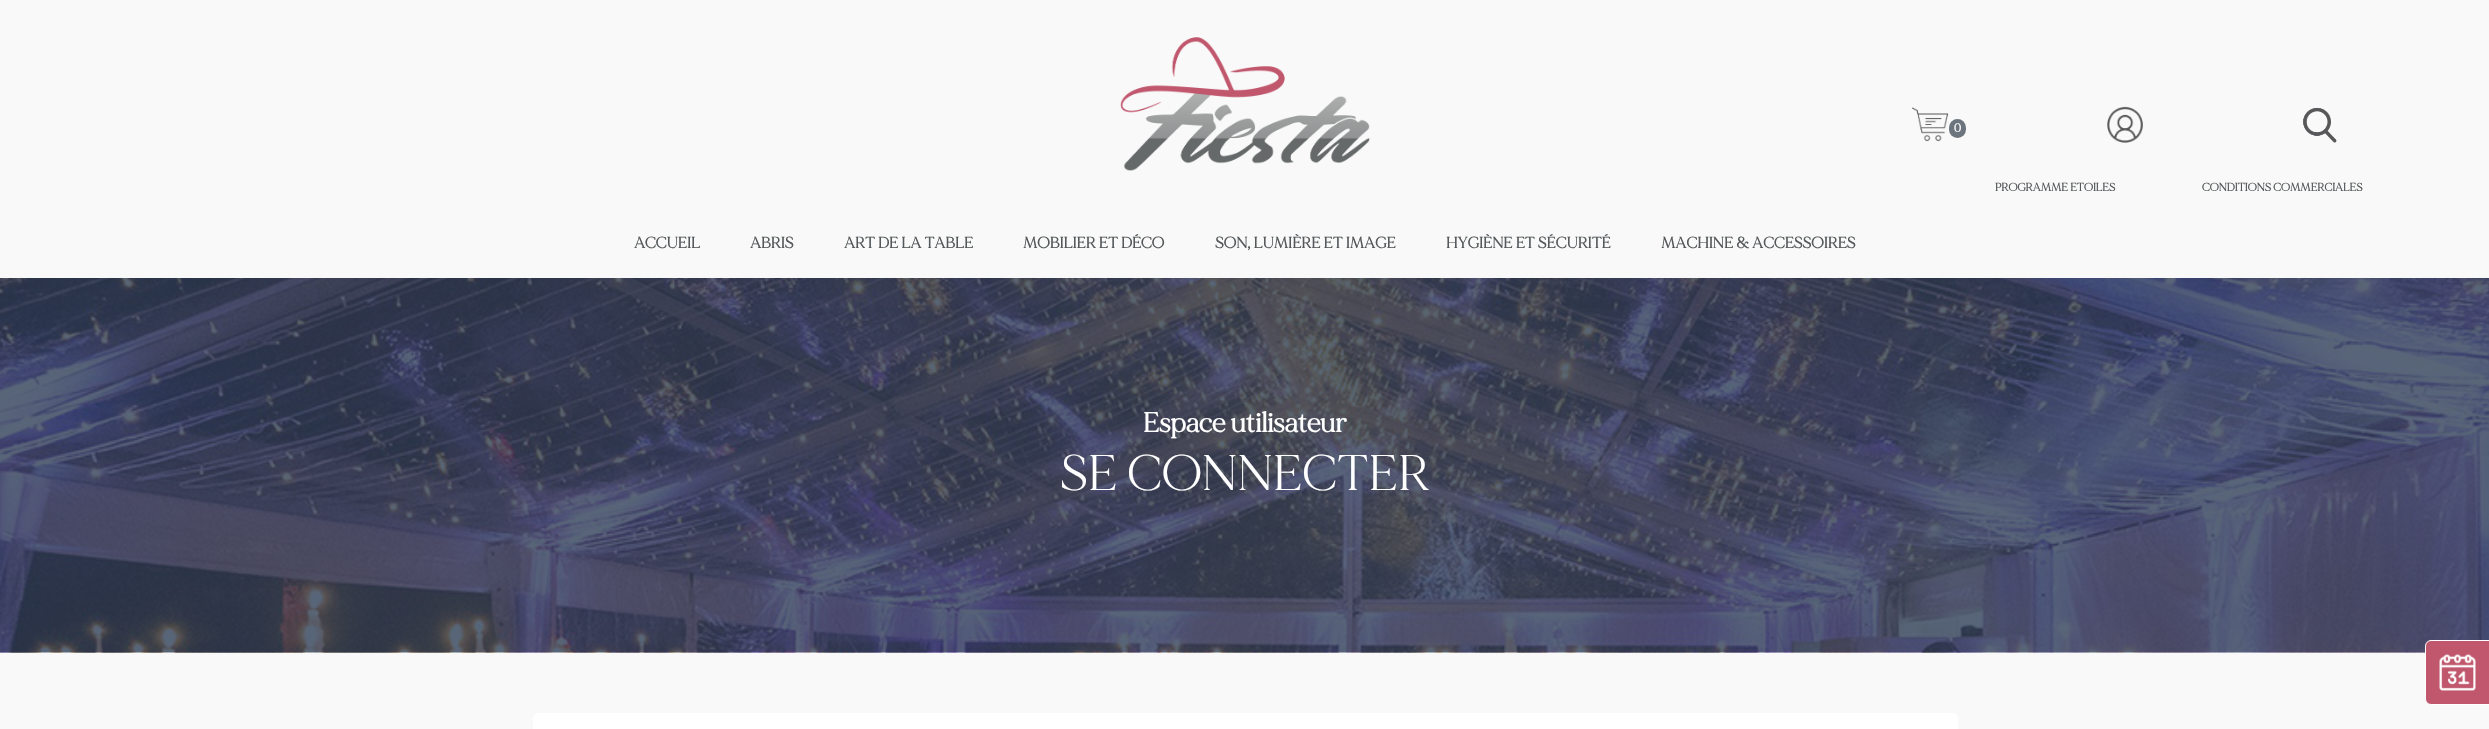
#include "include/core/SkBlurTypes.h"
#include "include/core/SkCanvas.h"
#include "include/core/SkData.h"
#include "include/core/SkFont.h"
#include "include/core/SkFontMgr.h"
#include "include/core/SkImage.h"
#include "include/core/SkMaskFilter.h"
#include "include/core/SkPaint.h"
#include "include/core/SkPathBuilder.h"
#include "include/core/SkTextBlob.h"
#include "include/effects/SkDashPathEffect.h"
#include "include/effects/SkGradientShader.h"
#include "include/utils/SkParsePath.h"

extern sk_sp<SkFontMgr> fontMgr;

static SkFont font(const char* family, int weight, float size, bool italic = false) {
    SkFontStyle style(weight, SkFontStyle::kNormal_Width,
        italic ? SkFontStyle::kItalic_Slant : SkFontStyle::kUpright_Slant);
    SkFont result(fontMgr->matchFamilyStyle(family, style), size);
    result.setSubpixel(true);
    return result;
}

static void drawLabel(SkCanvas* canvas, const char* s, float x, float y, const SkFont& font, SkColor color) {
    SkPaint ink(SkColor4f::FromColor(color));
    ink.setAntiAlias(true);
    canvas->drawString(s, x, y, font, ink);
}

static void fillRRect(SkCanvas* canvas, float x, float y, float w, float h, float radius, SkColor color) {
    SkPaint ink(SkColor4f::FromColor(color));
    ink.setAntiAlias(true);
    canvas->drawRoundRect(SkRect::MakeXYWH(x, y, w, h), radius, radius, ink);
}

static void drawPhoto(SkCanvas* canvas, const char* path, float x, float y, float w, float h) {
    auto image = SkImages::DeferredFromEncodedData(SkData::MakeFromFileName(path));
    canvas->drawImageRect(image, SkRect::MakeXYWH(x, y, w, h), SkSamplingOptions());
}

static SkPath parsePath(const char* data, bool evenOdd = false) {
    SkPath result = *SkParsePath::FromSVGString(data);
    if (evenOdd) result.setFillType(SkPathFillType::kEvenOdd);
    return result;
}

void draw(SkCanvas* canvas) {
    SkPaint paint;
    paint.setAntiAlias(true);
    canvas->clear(0xFFF9F9F9);
    drawPhoto(canvas, "assets/img1.png", 1120, 37, 250, 134);
    drawPhoto(canvas, "assets/img2.png", 1912, 107, 37, 35);
    fillRRect(canvas, 1949, 119, 17, 19, 8.5f, 0xFF6C757D);
    SkFont font1 = font("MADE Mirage", 700, 12);
    drawLabel(canvas, "0", 1954, 132, font1, 0xFFFFFFFF);
    drawPhoto(canvas, "assets/img3.png", 2107, 106, 36, 37);
    drawPhoto(canvas, "assets/img4.png", 2303, 107, 34, 36);
    SkFont font2 = font("MADE Mirage", 700, 11.25f);
    drawLabel(canvas, "PROGRAMME ETOILES", 1995, 191, font2, 0xFF54585A);
    drawLabel(canvas, "CONDITIONS COMMERCIALES", 2202, 191, font2, 0xFF54585A);
    SkFont font3 = font("MADE Mirage", 700, 15.6f);
    drawLabel(canvas, "ACCUEIL", 634, 248, font3, 0xFF54585A);
    drawLabel(canvas, "ABRIS", 750, 248, font3, 0xFF54585A);
    drawLabel(canvas, "ART DE LA TABLE", 844, 248, font3, 0xFF54585A);
    drawLabel(canvas, "MOBILIER ET DÉCO", 1023, 248, font3, 0xFF54585A);
    drawLabel(canvas, "SON, LUMIÈRE ET IMAGE", 1215, 248, font3, 0xFF54585A);
    drawLabel(canvas, "HYGIÈNE ET SÉCURITÉ", 1446, 248, font3, 0xFF54585A);
    drawLabel(canvas, "MACHINE & ACCESSOIRES", 1661, 248, font3, 0xFF54585A);
    drawPhoto(canvas, "assets/img5.png", 0, 278, 2489, 375);
    SkFont font4 = font("MADE Mirage", 700, 27.5f);
    drawLabel(canvas, "Espace utilisateur", 1143, 432, font4, 0xFFFFFFFF);
    SkFont font5 = font("MADE Mirage", 400, 50);
    drawLabel(canvas, "SE CONNECTER", 1060, 490, font5, 0xFFFFFFFF);
    paint.setColor(0xFFC0576D);
    canvas->drawPath(parsePath("M2431 640.5H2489.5V704.5H2431C2428 704.5 2425.5 702 2425.5 699V646C2425.5 643 2428 640.5 2431 640.5Z"), paint);
    paint.setStroke(true);
    paint.setStrokeWidth(1);
    paint.setColor(0xFFFFFFFF);
    canvas->drawPath(parsePath("M2431 640.5H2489.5V704.5H2431C2428 704.5 2425.5 702 2425.5 699V646C2425.5 643 2428 640.5 2431 640.5Z"), paint);
    drawPhoto(canvas, "assets/img6.png", 2439, 654, 37, 37);
    fillRRect(canvas, 533, 713, 1425, 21, 5, 0xFFFFFFFF);
}
